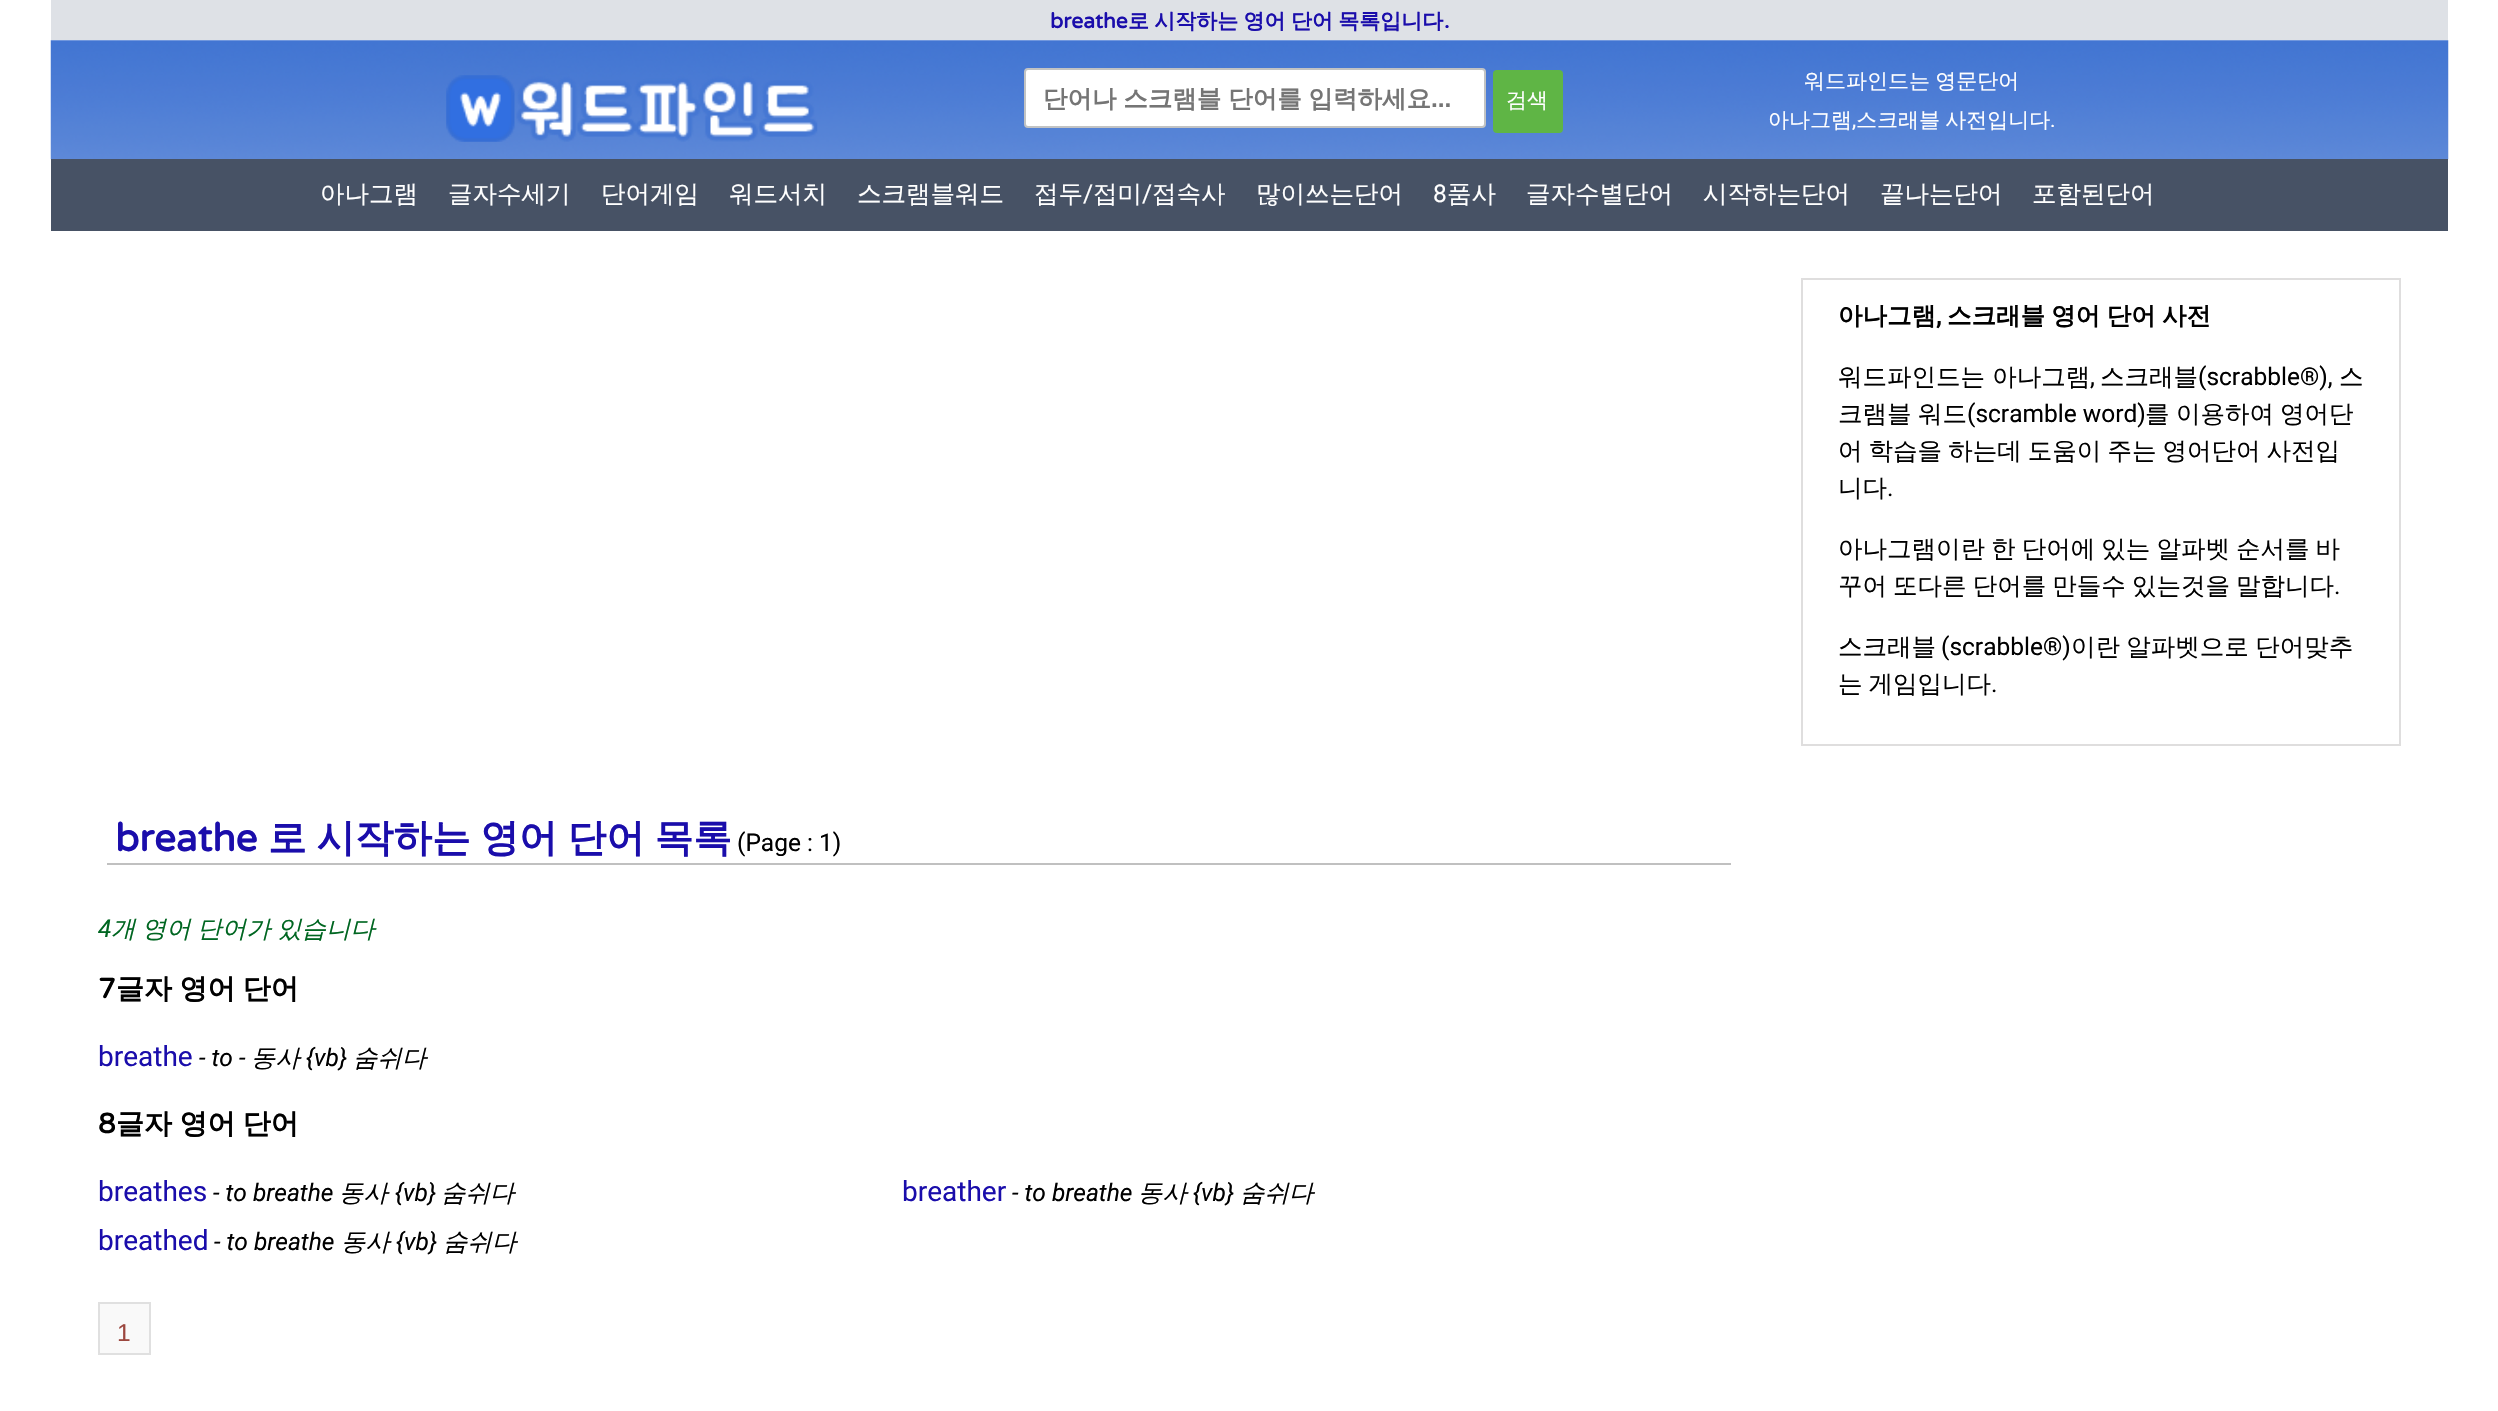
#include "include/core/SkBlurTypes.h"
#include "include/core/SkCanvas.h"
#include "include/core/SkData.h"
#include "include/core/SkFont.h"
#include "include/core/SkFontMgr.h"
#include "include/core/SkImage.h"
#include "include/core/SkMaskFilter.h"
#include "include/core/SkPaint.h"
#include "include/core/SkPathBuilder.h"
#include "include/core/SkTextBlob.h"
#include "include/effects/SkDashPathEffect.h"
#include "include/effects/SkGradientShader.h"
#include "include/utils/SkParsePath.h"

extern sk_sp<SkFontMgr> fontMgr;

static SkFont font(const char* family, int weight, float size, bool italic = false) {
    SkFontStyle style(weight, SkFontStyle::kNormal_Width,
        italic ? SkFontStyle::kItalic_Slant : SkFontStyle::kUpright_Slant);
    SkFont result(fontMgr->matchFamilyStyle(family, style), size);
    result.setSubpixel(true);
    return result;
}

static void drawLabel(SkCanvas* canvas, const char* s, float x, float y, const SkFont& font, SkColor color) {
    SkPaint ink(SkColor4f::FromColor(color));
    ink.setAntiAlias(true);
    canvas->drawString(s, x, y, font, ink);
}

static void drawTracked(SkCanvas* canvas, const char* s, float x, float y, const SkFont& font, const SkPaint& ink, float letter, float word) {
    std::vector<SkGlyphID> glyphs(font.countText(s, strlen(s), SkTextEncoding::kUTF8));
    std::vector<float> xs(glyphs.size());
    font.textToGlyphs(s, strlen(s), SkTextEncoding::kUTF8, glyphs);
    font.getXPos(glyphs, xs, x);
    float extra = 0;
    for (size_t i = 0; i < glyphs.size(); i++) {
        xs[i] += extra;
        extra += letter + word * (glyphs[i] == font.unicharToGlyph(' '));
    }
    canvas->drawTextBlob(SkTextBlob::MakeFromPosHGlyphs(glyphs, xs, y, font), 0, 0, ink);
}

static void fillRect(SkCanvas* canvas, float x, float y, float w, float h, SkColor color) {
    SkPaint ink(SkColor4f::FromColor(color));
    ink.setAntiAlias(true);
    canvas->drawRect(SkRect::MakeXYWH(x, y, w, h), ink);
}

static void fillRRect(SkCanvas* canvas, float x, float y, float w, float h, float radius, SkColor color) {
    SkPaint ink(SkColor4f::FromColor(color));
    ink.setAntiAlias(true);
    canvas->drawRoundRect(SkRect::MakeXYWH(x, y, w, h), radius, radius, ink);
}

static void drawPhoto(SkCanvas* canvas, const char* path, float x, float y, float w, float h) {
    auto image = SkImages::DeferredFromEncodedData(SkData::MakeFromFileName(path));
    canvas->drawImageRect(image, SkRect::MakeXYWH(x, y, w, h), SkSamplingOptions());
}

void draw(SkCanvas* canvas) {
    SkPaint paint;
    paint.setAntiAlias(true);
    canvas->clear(0xFFFFFFFF);
    fillRect(canvas, 51, 0, 2397, 40, 0xFFDEE1E6);
    SkFont font1 = font("Varela Round", 700, 21);
    drawLabel(canvas, "breathe", 1050, 28, font1, 0xFF1A0DAB);
    SkFont font2 = font("WenQuanYi Zen Hei", 700, 21);
    paint.setColor(0xFF1A0DAB);
    drawTracked(canvas, "로 시작하는 영어 단어 목록입니다", 1128, 28, font2, paint, 0, -1);
    drawLabel(canvas, ".", 1444, 28, font1, 0xFF1A0DAB);
    drawPhoto(canvas, "assets/img1.png", 50, 40, 2399, 120);
    drawPhoto(canvas, "assets/img2.png", 446, 75, 372, 67);
    paint.setColor(0xFFFFFFFF);
    canvas->drawRoundRect(SkRect::MakeXYWH(1025, 69, 460, 58), 3, 3, paint);
    paint.setStroke(true);
    paint.setStrokeWidth(2);
    paint.setColor(0xFFC2C3C3);
    canvas->drawRoundRect(SkRect::MakeXYWH(1025, 69, 460, 58), 3, 3, paint);
    SkFont font3 = font("WenQuanYi Zen Hei", 700, 24.5f);
    paint.setStroke(false);
    paint.setColor(0xFF757575);
    drawTracked(canvas, "단어나 스크램블 단어를 입력하세요", 1043, 107, font3, paint, 0, -0.5f);
    SkFont font4 = font("Liberation Sans", 700, 24.5f);
    drawLabel(canvas, "...", 1431, 107, font4, 0xFF757575);
    fillRRect(canvas, 1493, 70, 70, 63, 4, 0xFF5FB545);
    SkFont font5 = font("WenQuanYi Zen Hei", 500, 21);
    drawLabel(canvas, "검색", 1506, 107, font5, 0xFFFFFFFF);
    paint.setColor(0xFFFFFFFF);
    drawTracked(canvas, "워드파인드는 영문단어", 1804, 88, font5, paint, 0, -1);
    drawLabel(canvas, "아나그램", 1768, 127, font5, 0xFFFFFFFF);
    SkFont font6 = font("Roboto", 400, 21);
    drawLabel(canvas, ",", 1852, 127, font6, 0xFFFFFFFF);
    drawTracked(canvas, "스크래블 사전입니다", 1856, 127, font5, paint, 0, -1);
    drawLabel(canvas, ".", 2050, 127, font6, 0xFFFFFFFF);
    fillRect(canvas, 51, 159, 2397, 72, 0xFF475265);
    SkFont font7 = font("WenQuanYi Zen Hei", 500, 24.5f);
    drawLabel(canvas, "아나그램", 320, 202, font7, 0xFFFFFFFF);
    drawLabel(canvas, "글자수세기", 448, 202, font7, 0xFFFFFFFF);
    drawLabel(canvas, "단어게임", 601, 202, font7, 0xFFFFFFFF);
    drawLabel(canvas, "워드서치", 729, 202, font7, 0xFFFFFFFF);
    drawLabel(canvas, "스크램블워드", 857, 202, font7, 0xFFFFFFFF);
    drawLabel(canvas, "접두", 1034, 202, font7, 0xFFFFFFFF);
    SkFont font8 = font("Roboto", 400, 24.5f);
    drawLabel(canvas, "/", 1083, 202, font8, 0xFFFFFFFF);
    drawLabel(canvas, "접미", 1093, 202, font7, 0xFFFFFFFF);
    drawLabel(canvas, "/", 1142, 202, font8, 0xFFFFFFFF);
    drawLabel(canvas, "접속사", 1152, 202, font7, 0xFFFFFFFF);
    drawLabel(canvas, "많이쓰는단어", 1256, 202, font7, 0xFFFFFFFF);
    drawLabel(canvas, "8", 1433, 202, font8, 0xFFFFFFFF);
    drawLabel(canvas, "품사", 1447, 202, font7, 0xFFFFFFFF);
    drawLabel(canvas, "글자수별단어", 1526, 202, font7, 0xFFFFFFFF);
    drawLabel(canvas, "시작하는단어", 1703, 202, font7, 0xFFFFFFFF);
    drawLabel(canvas, "끝나는단어", 1880, 202, font7, 0xFFFFFFFF);
    drawLabel(canvas, "포함된단어", 2032, 202, font7, 0xFFFFFFFF);
    paint.setStroke(true);
    paint.setColor(0xFFDFDEDE);
    canvas->drawRect(SkRect::MakeXYWH(1802, 279, 598, 466), paint);
    drawLabel(canvas, "아나그램", 1838, 324, font3, 0xFF000000);
    SkFont font9 = font("Roboto", 700, 24.5f);
    drawLabel(canvas, ",", 1936, 324, font9, 0xFF000000);
    paint.setStroke(false);
    paint.setColor(0xFF000000);
    drawTracked(canvas, "스크래블 영어 단어 사전", 1947, 324, font3, paint, 0, -1);
    drawLabel(canvas, "워드파인드는 아나그램", 1838, 385, font7, 0xFF000000);
    drawLabel(canvas, ",", 2090, 385, font8, 0xFF000000);
    drawLabel(canvas, "스크래블", 2100, 385, font7, 0xFF000000);
    drawLabel(canvas, "(scrabble®),", 2198, 385, font8, 0xFF000000);
    drawLabel(canvas, "스", 2339, 385, font7, 0xFF000000);
    drawLabel(canvas, "크램블", 1838, 422, font7, 0xFF000000);
    drawLabel(canvas, "워드", 1918, 422, font7, 0xFF000000);
    drawLabel(canvas, "(scramble word)", 1967, 422, font8, 0xFF000000);
    drawLabel(canvas, "를", 2145, 422, font7, 0xFF000000);
    drawLabel(canvas, "이용하여", 2176, 422, font7, 0xFF000000);
    drawLabel(canvas, "영어단", 2280, 422, font7, 0xFF000000);
    drawTracked(canvas, "어 학습을 하는데 도움이 주는 영어단어 사전입", 1838, 459, font7, paint, 0, -1.25f);
    drawLabel(canvas, "니다", 1838, 496, font7, 0xFF000000);
    drawLabel(canvas, ".", 1887, 496, font8, 0xFF000000);
    drawTracked(canvas, "아나그램이란 한 단어에 있는 알파벳 순서를 바", 1838, 557, font7, paint, 0, -1.25f);
    drawTracked(canvas, "꾸어 또다른 단어를 만들수 있는것을 말합니다", 1838, 594, font7, paint, 0, -1.25f);
    drawLabel(canvas, ".", 2334, 594, font8, 0xFF000000);
    drawLabel(canvas, "스크래블", 1838, 655, font7, 0xFF000000);
    drawLabel(canvas, "(scrabble®)", 1941, 655, font8, 0xFF000000);
    drawTracked(canvas, "이란 알파벳으로 단어맞추", 2071, 655, font7, paint, 0, -1);
    drawTracked(canvas, "는 게임입니다", 1838, 692, font7, paint, 0, -1.25f);
    drawLabel(canvas, ".", 1991, 692, font8, 0xFF000000);
    fillRect(canvas, 107, 863, 1624, 2, 0xFFC0C0C0);
    SkFont font10 = font("Varela Round", 700, 38.5f);
    drawLabel(canvas, "breathe", 115, 851, font10, 0xFF1A0DAB);
    SkFont font11 = font("WenQuanYi Zen Hei", 700, 38.5f);
    paint.setColor(0xFF1A0DAB);
    drawTracked(canvas, "로 시작하는 영어 단어 목록", 268, 851, font11, paint, 0, -1.5f);
    drawLabel(canvas, "(Page : 1)", 737, 851, font8, 0xFF000000);
    SkFont font12 = font("Roboto", 400, 24.5f, true);
    drawLabel(canvas, "4", 98, 937, font12, 0xFF006621);
    SkFont font13 = font("WenQuanYi Zen Hei", 500, 24.5f, true);
    paint.setColor(0xFF006621);
    drawTracked(canvas, "개 영어 단어가 있습니다", 111, 937, font13, paint, 0, -1);
    SkFont font14 = font("Varela Round", 700, 28);
    drawLabel(canvas, "7", 98, 998, font14, 0xFF000000);
    SkFont font15 = font("WenQuanYi Zen Hei", 700, 28);
    paint.setColor(0xFF000000);
    drawTracked(canvas, "글자 영어 단어", 116, 998, font15, paint, 0, -1);
    SkFont font16 = font("Roboto", 400, 28);
    drawLabel(canvas, "breathe", 98, 1066, font16, 0xFF1A0DAB);
    drawLabel(canvas, "- to -", 199, 1066, font12, 0xFF000000);
    drawLabel(canvas, "동사", 251, 1066, font13, 0xFF000000);
    drawLabel(canvas, "{vb}", 306, 1066, font12, 0xFF000000);
    drawLabel(canvas, "숨쉬다", 353, 1066, font13, 0xFF000000);
    drawLabel(canvas, "8", 98, 1133, font14, 0xFF000000);
    drawTracked(canvas, "글자 영어 단어", 116, 1133, font15, paint, 0, -1);
    drawLabel(canvas, "breathes", 98, 1201, font16, 0xFF1A0DAB);
    drawLabel(canvas, "- to breathe", 213, 1201, font12, 0xFF000000);
    drawLabel(canvas, "동사", 339, 1201, font13, 0xFF000000);
    drawLabel(canvas, "{vb}", 395, 1201, font12, 0xFF000000);
    drawLabel(canvas, "숨쉬다", 441, 1201, font13, 0xFF000000);
    drawLabel(canvas, "breather", 902, 1201, font16, 0xFF1A0DAB);
    drawLabel(canvas, "- to breathe", 1012, 1201, font12, 0xFF000000);
    drawLabel(canvas, "동사", 1138, 1201, font13, 0xFF000000);
    drawLabel(canvas, "{vb}", 1193, 1201, font12, 0xFF000000);
    drawLabel(canvas, "숨쉬다", 1240, 1201, font13, 0xFF000000);
    drawLabel(canvas, "breathed", 98, 1250, font16, 0xFF1A0DAB);
    drawLabel(canvas, "- to breathe", 214, 1250, font12, 0xFF000000);
    drawLabel(canvas, "동사", 341, 1250, font13, 0xFF000000);
    drawLabel(canvas, "{vb}", 396, 1250, font12, 0xFF000000);
    drawLabel(canvas, "숨쉬다", 443, 1250, font13, 0xFF000000);
    paint.setColor(0xFFF9F9F9);
    canvas->drawRect(SkRect::MakeXYWH(99, 1303, 51, 51), paint);
    paint.setStroke(true);
    paint.setColor(0xFFE0E0E0);
    canvas->drawRect(SkRect::MakeXYWH(99, 1303, 51, 51), paint);
    SkFont font17 = font("Liberation Sans", 400, 24.5f);
    drawLabel(canvas, "1", 117, 1341, font17, 0xFF9C473F);
}
